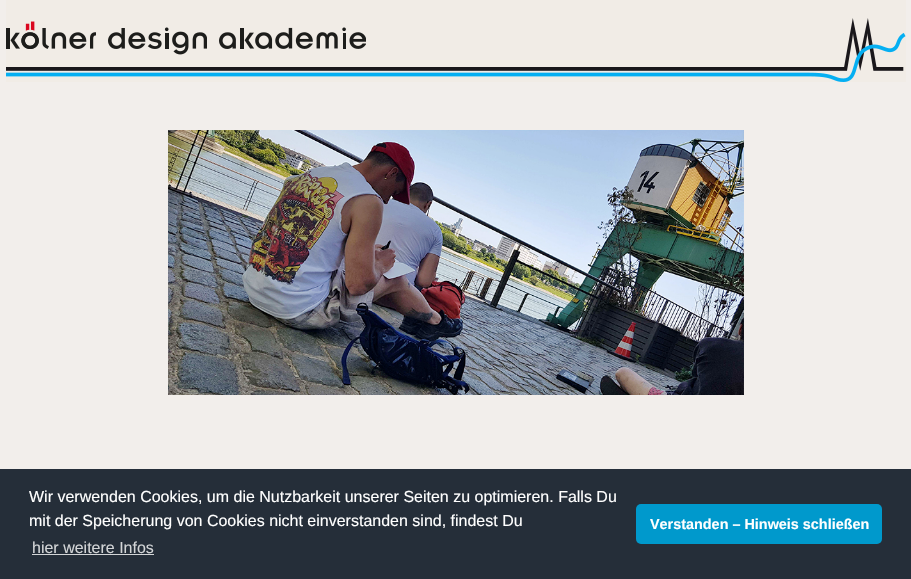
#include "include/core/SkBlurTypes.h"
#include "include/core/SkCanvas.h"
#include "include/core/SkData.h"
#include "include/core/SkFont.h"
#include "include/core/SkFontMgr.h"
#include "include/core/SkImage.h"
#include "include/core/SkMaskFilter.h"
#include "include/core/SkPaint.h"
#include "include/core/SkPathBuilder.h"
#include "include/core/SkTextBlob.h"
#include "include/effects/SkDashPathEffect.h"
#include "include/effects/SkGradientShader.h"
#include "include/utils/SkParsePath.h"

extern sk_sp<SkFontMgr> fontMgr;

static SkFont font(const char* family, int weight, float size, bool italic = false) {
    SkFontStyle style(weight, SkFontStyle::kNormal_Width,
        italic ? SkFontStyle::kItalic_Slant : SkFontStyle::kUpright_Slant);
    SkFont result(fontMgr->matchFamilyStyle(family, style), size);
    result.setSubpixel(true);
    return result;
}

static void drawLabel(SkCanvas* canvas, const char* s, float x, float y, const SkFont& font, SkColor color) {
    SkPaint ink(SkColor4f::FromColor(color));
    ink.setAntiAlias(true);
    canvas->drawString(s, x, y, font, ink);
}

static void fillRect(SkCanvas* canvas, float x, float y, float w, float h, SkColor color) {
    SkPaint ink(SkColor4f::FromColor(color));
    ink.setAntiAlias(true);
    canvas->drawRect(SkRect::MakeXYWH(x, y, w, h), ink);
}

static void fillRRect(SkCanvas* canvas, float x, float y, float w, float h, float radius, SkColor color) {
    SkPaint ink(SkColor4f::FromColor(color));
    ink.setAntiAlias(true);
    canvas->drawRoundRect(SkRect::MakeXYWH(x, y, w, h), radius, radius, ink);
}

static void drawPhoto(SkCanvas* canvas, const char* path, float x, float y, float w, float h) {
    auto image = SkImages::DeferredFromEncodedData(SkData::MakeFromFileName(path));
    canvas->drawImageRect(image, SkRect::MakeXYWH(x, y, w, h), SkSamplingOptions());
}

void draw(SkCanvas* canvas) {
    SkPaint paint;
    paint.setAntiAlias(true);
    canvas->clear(0xFFF2EEEB);
    fillRect(canvas, 6, 0, 900, 82, 0xFFF1ECE6);
    drawPhoto(canvas, "assets/img1.png", 6, 18, 900, 64);
    drawPhoto(canvas, "assets/img2.png", 6, 21, 90, 28);
    drawPhoto(canvas, "assets/img3.png", 108, 27, 99, 28);
    drawPhoto(canvas, "assets/img4.png", 219, 27, 147, 22);
    drawPhoto(canvas, "assets/img5.png", 168, 130, 576, 265);
    fillRect(canvas, 0, 469, 911, 110, 0xFF252E39);
    SkFont font1 = font("Liberation Sans", 400, 16);
    drawLabel(canvas, "Wir verwenden Cookies, um die Nutzbarkeit unserer Seiten zu optimieren. Falls Du", 29, 502, font1, 0xFFFFFFFF);
    drawLabel(canvas, "mit der Speicherung von Cookies nicht einverstanden sind, findest Du", 29, 526, font1, 0xFFFFFFFF);
    drawLabel(canvas, "hier weitere Infos", 32, 553, font1, 0xFFD3D5D7);
    fillRect(canvas, 32, 554, 122, 1, 0xFFD3D5D7);
    fillRRect(canvas, 636, 504, 246, 40, 5, 0xFF0099CC);
    SkFont font2 = font("Liberation Sans", 700, 14.4f);
    drawLabel(canvas, "Verstanden – Hinweis schließen", 650, 529, font2, 0xFFFFFFFF);
}
